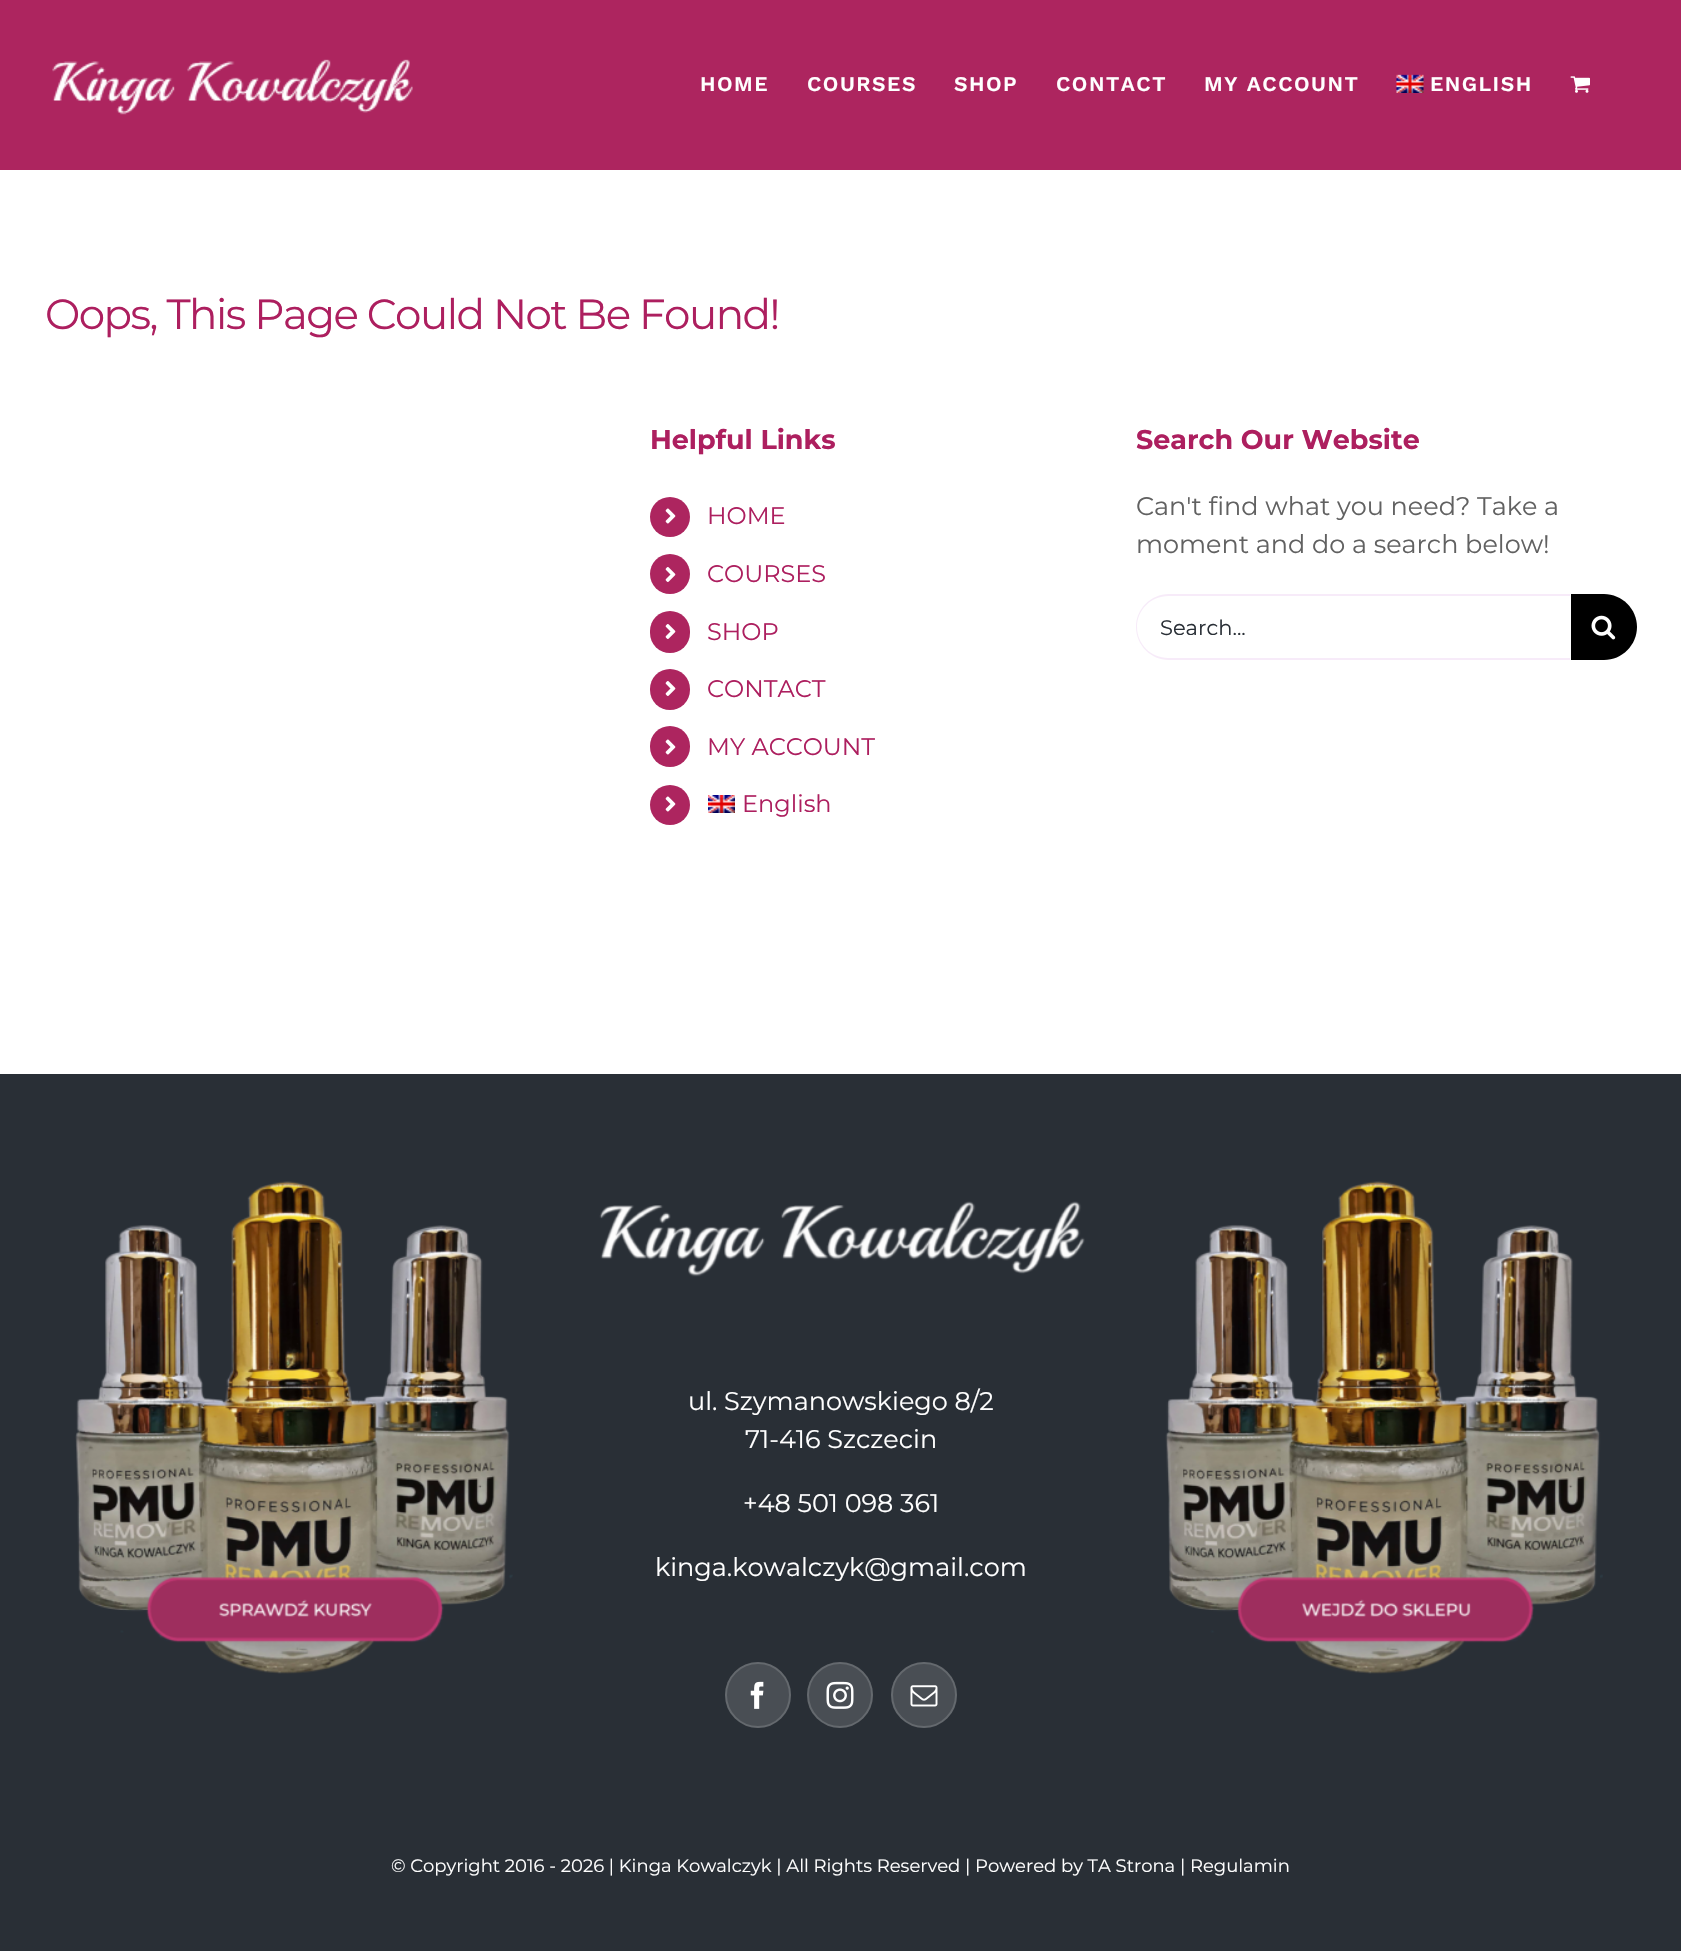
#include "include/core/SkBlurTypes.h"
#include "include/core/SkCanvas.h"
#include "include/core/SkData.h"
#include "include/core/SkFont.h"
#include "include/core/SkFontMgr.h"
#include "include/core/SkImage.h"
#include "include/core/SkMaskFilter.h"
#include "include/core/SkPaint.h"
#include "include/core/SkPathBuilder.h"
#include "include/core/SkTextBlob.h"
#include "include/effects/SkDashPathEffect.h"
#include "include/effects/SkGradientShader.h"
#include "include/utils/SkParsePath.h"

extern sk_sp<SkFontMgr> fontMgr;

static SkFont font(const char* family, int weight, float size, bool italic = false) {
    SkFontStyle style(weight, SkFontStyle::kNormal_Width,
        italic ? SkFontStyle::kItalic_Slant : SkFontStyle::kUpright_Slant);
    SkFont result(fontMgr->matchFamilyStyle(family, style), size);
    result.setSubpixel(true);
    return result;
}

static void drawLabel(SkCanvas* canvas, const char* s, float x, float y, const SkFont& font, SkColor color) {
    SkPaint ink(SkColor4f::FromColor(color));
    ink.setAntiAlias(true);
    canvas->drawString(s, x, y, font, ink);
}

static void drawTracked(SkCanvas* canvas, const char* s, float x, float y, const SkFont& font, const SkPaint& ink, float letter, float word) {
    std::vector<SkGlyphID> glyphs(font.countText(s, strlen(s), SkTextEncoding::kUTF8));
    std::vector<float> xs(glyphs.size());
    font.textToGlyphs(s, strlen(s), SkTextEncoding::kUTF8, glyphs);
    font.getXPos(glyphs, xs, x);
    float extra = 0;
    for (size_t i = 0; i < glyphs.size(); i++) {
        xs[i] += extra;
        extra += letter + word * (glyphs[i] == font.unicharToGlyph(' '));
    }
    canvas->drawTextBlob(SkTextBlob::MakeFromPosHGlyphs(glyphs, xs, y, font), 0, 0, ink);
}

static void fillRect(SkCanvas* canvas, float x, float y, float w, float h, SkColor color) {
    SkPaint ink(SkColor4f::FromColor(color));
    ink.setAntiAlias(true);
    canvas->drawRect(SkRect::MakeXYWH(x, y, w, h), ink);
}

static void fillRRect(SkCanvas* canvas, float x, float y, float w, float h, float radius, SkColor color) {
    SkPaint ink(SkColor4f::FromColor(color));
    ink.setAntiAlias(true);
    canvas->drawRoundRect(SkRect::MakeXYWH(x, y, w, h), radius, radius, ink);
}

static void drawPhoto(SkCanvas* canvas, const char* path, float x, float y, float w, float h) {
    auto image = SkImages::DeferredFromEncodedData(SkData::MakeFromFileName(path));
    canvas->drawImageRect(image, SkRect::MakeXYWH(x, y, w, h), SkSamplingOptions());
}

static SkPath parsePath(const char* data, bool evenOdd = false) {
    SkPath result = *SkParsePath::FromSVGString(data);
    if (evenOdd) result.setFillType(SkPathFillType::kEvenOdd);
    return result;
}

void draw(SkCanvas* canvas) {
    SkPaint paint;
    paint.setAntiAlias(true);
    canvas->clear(0xFFFFFFFF);
    fillRect(canvas, 0, 0, 1681, 170, 0xFFAD255F);
    drawPhoto(canvas, "assets/img1.png", 52, 59, 361, 56);
    SkFont font1 = font("Work Sans", 600, 21);
    paint.setColor(0xFFFFFFFF);
    drawTracked(canvas, "HOME", 700, 91, font1, paint, 1.5f, 0);
    drawTracked(canvas, "COURSES", 807, 91, font1, paint, 1.5f, 0);
    drawTracked(canvas, "SHOP", 954, 91, font1, paint, 1.5f, 0);
    drawTracked(canvas, "CONTACT", 1056, 91, font1, paint, 1.5f, 0);
    drawTracked(canvas, "MY ACCOUNT", 1204, 91, font1, paint, 1.5f, 0);
    drawPhoto(canvas, "assets/img2.png", 1396, 74, 28, 19);
    drawTracked(canvas, "ENGLISH", 1430, 91, font1, paint, 1.5f, 0);
    drawPhoto(canvas, "assets/img3.png", 1570, 76, 20, 17);
    SkFont font2 = font("Montserrat", 400, 42);
    paint.setColor(0xFFAD1F5F);
    drawTracked(canvas, "Oops, This Page Could Not Be Found!", 45, 329, font2, paint, -1.5f, 0);
    SkFont font3 = font("Montserrat", 700, 27);
    drawLabel(canvas, "Helpful Links", 650, 449, font3, 0xFFAD1F5F);
    paint.setColor(0xFFAD255F);
    canvas->drawCircle(670, 517, 20, paint);
    drawPhoto(canvas, "assets/img4.png", 665, 508, 11, 16);
    SkFont font4 = font("Montserrat", 400, 24);
    drawLabel(canvas, "HOME", 707, 524, font4, 0xFFAD1F5F);
    canvas->drawCircle(670, 574, 20, paint);
    drawPhoto(canvas, "assets/img5.png", 665, 567, 11, 15);
    drawLabel(canvas, "COURSES", 707, 582, font4, 0xFFAD1F5F);
    fillRRect(canvas, 650, 611, 40, 42, 20, 0xFFAD255F);
    drawPhoto(canvas, "assets/img5.png", 665, 624, 11, 15);
    drawLabel(canvas, "SHOP", 707, 640, font4, 0xFFAD1F5F);
    fillRRect(canvas, 650, 669, 40, 41, 20, 0xFFAD255F);
    drawPhoto(canvas, "assets/img5.png", 665, 681, 11, 15);
    drawLabel(canvas, "CONTACT", 707, 697, font4, 0xFFAD1F5F);
    fillRRect(canvas, 650, 726, 40, 41, 20, 0xFFAD255F);
    drawPhoto(canvas, "assets/img4.png", 665, 739, 11, 16);
    drawLabel(canvas, "MY ACCOUNT", 707, 755, font4, 0xFFAD1F5F);
    canvas->drawCircle(670, 805, 20, paint);
    drawPhoto(canvas, "assets/img4.png", 665, 796, 11, 16);
    drawPhoto(canvas, "assets/img6.png", 708, 795, 27, 18);
    drawLabel(canvas, "English", 742, 812, font4, 0xFFAD1F5F);
    drawLabel(canvas, "Search Our Website", 1136, 449, font3, 0xFFAD1F5F);
    SkFont font5 = font("Montserrat", 400, 25.5f);
    drawLabel(canvas, "Can't find what you need? Take a", 1136, 515, font5, 0xFF616161);
    drawLabel(canvas, "moment and do a search below!", 1136, 553, font5, 0xFF616161);
    paint.setColor(0xFFF7EBF9);
    canvas->drawPath(parsePath("M1168 596H1570V594H1169C1151 594 1136 609 1136 627C1136 645 1151 660 1169 660H1570V658H1168C1151 658 1137 644 1137 627C1137 610 1151 596 1168 596Z"), paint);
    SkFont font6 = font("Montserrat", 400, 21);
    drawLabel(canvas, "Search...", 1160, 635, font6, 0xFF292F36);
    paint.setColor(0xFF000000);
    canvas->drawPath(parsePath("M1571 594H1604C1622 594 1637 609 1637 627C1637 645 1622 660 1604 660H1571Z"), paint);
    drawPhoto(canvas, "assets/img7.png", 1591, 615, 25, 25);
    fillRect(canvas, 0, 1074, 1681, 877, 0xFF292F36);
    drawPhoto(canvas, "assets/img8.png", 75, 1181, 438, 493);
    drawPhoto(canvas, "assets/img9.png", 599, 1201, 486, 76);
    drawLabel(canvas, "ul. Szymanowskiego 8/2", 688, 1410, font5, 0xFFFFFFFF);
    drawLabel(canvas, "71-416 Szczecin", 745, 1448, font5, 0xFFFFFFFF);
    drawLabel(canvas, "+48 501 098 361", 743, 1512, font5, 0xFFFFFFFF);
    drawLabel(canvas, "kinga.kowalczyk@gmail.com", 655, 1576, font5, 0xFFFFFFFF);
    paint.setColor(0xFF494E54);
    canvas->drawCircle(758, 1695, 33, paint);
    paint.setStroke(true);
    paint.setStrokeWidth(2);
    paint.setColor(0x26FFFFFF);
    canvas->drawCircle(758, 1695, 32, paint);
    drawPhoto(canvas, "assets/img10.png", 750, 1681, 14, 28);
    paint.setStroke(false);
    paint.setColor(0xFF494E54);
    canvas->drawCircle(840, 1695, 33, paint);
    paint.setStroke(true);
    paint.setColor(0x26FFFFFF);
    canvas->drawCircle(840, 1695, 32, paint);
    drawPhoto(canvas, "assets/img11.png", 826, 1681, 28, 28);
    paint.setStroke(false);
    paint.setColor(0xFF494E54);
    canvas->drawCircle(924, 1695, 33, paint);
    paint.setStroke(true);
    paint.setColor(0x26FFFFFF);
    canvas->drawCircle(924, 1695, 32, paint);
    drawPhoto(canvas, "assets/img12.png", 910, 1685, 28, 22);
    drawPhoto(canvas, "assets/img13.png", 1165, 1181, 438, 493);
    SkFont font7 = font("Montserrat", 400, 18);
    drawLabel(canvas, "© Copyright 2016 - 2026 | Kinga Kowalczyk | All Rights Reserved | Powered by TA Strona | Regulamin", 391, 1872, font7, 0xFFFFFFFF);
}
